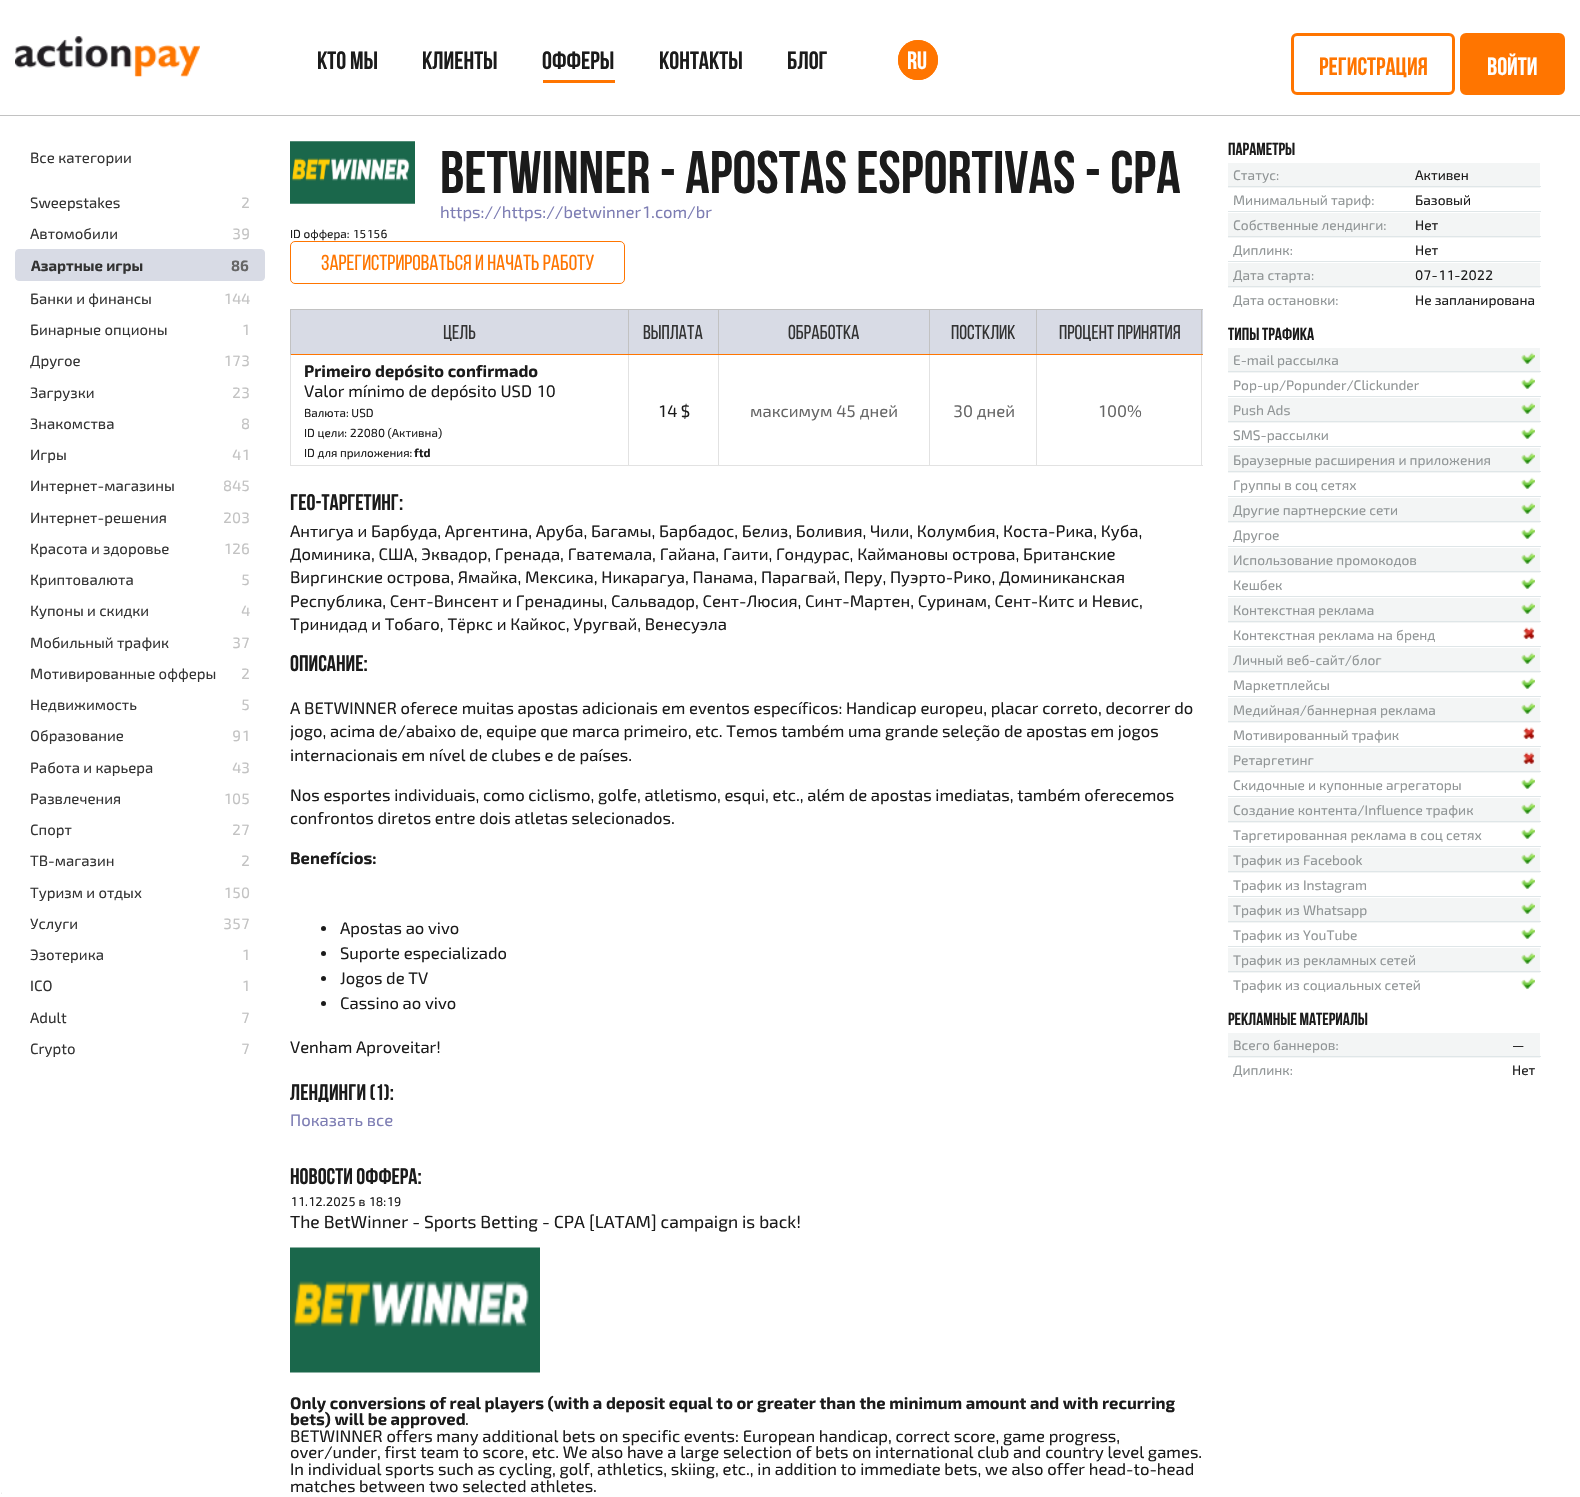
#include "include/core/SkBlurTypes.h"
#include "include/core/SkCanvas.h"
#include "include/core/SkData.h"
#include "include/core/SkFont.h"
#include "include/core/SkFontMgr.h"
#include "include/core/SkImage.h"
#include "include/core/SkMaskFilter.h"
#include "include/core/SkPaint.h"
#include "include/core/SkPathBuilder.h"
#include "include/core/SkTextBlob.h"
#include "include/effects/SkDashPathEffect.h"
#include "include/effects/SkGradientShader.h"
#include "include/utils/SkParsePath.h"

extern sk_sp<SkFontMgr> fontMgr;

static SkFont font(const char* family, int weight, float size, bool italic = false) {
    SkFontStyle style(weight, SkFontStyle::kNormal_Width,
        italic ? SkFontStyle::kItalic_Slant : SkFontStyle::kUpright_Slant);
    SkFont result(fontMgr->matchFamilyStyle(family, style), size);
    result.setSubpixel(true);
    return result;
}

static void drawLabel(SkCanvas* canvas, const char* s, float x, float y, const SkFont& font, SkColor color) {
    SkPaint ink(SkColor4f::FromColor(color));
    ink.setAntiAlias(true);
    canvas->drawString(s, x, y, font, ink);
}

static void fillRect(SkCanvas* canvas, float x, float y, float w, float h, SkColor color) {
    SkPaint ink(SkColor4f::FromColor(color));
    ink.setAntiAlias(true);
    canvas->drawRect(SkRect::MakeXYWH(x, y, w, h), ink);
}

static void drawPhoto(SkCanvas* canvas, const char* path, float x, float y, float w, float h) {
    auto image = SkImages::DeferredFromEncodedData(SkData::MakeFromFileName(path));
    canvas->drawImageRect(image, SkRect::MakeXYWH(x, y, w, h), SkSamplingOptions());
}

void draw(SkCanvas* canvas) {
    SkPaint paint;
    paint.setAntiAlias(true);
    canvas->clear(0xFFFFFFFF);
    fillRect(canvas, 0, 115, 1580, 1, 0xFFC2C2C2);
    drawPhoto(canvas, "assets/img1.png", 15, 36, 185, 41);
    SkFont font1 = font("Bebas Neue", 700, 25);
    drawLabel(canvas, "КТО МЫ", 317, 69, font1, 0xFF1B1B1B);
    drawLabel(canvas, "КЛИЕНТЫ", 422, 69, font1, 0xFF1B1B1B);
    drawLabel(canvas, "ОФФЕРЫ", 542, 69, font1, 0xFF1B1B1B);
    fillRect(canvas, 543, 80, 72, 3, 0xFFFF7500);
    drawLabel(canvas, "КОНТАКТЫ", 659, 69, font1, 0xFF1B1B1B);
    drawLabel(canvas, "БЛОГ", 787, 69, font1, 0xFF1B1B1B);
    paint.setStroke(true);
    paint.setStrokeWidth(3);
    paint.setColor(0xFFFF7500);
    canvas->drawCircle(918, 60, 18.5f, paint);
    paint.setStroke(false);
    canvas->drawCircle(918, 60, 20, paint);
    drawLabel(canvas, "RU", 907, 69, font1, 0xFFFFFFFF);
    paint.setStroke(true);
    canvas->drawRoundRect(SkRect::MakeXYWH(1292.5f, 34.5f, 161, 59), 4.5f, 4.5f, paint);
    drawLabel(canvas, "РЕГИСТРАЦИЯ", 1319, 75, font1, 0xFFFF7500);
    paint.setStroke(false);
    canvas->drawRoundRect(SkRect::MakeXYWH(1461.5f, 34.5f, 102, 59), 4.5f, 4.5f, paint);
    paint.setStroke(true);
    canvas->drawRoundRect(SkRect::MakeXYWH(1461.5f, 34.5f, 102, 59), 4.5f, 4.5f, paint);
    drawLabel(canvas, "ВОЙТИ", 1487, 75, font1, 0xFFFFFFFF);
    drawPhoto(canvas, "assets/img2.png", 1, 1492, 1, 2);
    SkFont font2 = font("Exo 2", 400, 15);
    drawLabel(canvas, "Все категории", 30, 163, font2, 0xFF333333);
    drawLabel(canvas, "Sweepstakes", 30, 208, font2, 0xFF333333);
    drawLabel(canvas, "2", 241, 208, font2, 0xFFC2C2C2);
    drawLabel(canvas, "Автомобили", 30, 239, font2, 0xFF333333);
    drawLabel(canvas, "39", 232, 239, font2, 0xFFC2C2C2);
    paint.setStroke(false);
    paint.setColor(0xFFD8DBE5);
    canvas->drawRoundRect(SkRect::MakeXYWH(15.5f, 249.5f, 249, 31), 3.5f, 3.5f, paint);
    paint.setStroke(true);
    paint.setStrokeWidth(1);
    canvas->drawRoundRect(SkRect::MakeXYWH(15.5f, 249.5f, 249, 31), 3.5f, 3.5f, paint);
    SkFont font3 = font("Exo 2", 700, 15);
    drawLabel(canvas, "Азартные игры", 31, 271, font3, 0xFF333333);
    drawLabel(canvas, "86", 231, 271, font3, 0xFF666666);
    drawLabel(canvas, "Банки и финансы", 30, 304, font2, 0xFF333333);
    drawLabel(canvas, "144", 223, 304, font2, 0xFFC2C2C2);
    drawLabel(canvas, "Бинарные опционы", 30, 335, font2, 0xFF333333);
    drawLabel(canvas, "1", 241, 335, font2, 0xFFC2C2C2);
    drawLabel(canvas, "Другое", 30, 366, font2, 0xFF333333);
    drawLabel(canvas, "173", 223, 366, font2, 0xFFC2C2C2);
    drawLabel(canvas, "Загрузки", 30, 398, font2, 0xFF333333);
    drawLabel(canvas, "23", 232, 398, font2, 0xFFC2C2C2);
    drawLabel(canvas, "Знакомства", 30, 429, font2, 0xFF333333);
    drawLabel(canvas, "8", 241, 429, font2, 0xFFC2C2C2);
    drawLabel(canvas, "Игры", 30, 460, font2, 0xFF333333);
    drawLabel(canvas, "41", 232, 460, font2, 0xFFC2C2C2);
    drawLabel(canvas, "Интернет-магазины", 30, 491, font2, 0xFF333333);
    drawLabel(canvas, "845", 223, 491, font2, 0xFFC2C2C2);
    drawLabel(canvas, "Интернет-решения", 30, 523, font2, 0xFF333333);
    drawLabel(canvas, "203", 223, 523, font2, 0xFFC2C2C2);
    drawLabel(canvas, "Красота и здоровье", 30, 554, font2, 0xFF333333);
    drawLabel(canvas, "126", 223, 554, font2, 0xFFC2C2C2);
    drawLabel(canvas, "Криптовалюта", 30, 585, font2, 0xFF333333);
    drawLabel(canvas, "5", 241, 585, font2, 0xFFC2C2C2);
    drawLabel(canvas, "Купоны и скидки", 30, 616, font2, 0xFF333333);
    drawLabel(canvas, "4", 241, 616, font2, 0xFFC2C2C2);
    drawLabel(canvas, "Мобильный трафик", 30, 648, font2, 0xFF333333);
    drawLabel(canvas, "37", 232, 648, font2, 0xFFC2C2C2);
    drawLabel(canvas, "Мотивированные офферы", 30, 679, font2, 0xFF333333);
    drawLabel(canvas, "2", 241, 679, font2, 0xFFC2C2C2);
    drawLabel(canvas, "Недвижимость", 30, 710, font2, 0xFF333333);
    drawLabel(canvas, "5", 241, 710, font2, 0xFFC2C2C2);
    drawLabel(canvas, "Образование", 30, 741, font2, 0xFF333333);
    drawLabel(canvas, "91", 232, 741, font2, 0xFFC2C2C2);
    drawLabel(canvas, "Работа и карьера", 30, 773, font2, 0xFF333333);
    drawLabel(canvas, "43", 232, 773, font2, 0xFFC2C2C2);
    drawLabel(canvas, "Развлечения", 30, 804, font2, 0xFF333333);
    drawLabel(canvas, "105", 223, 804, font2, 0xFFC2C2C2);
    drawLabel(canvas, "Спорт", 30, 835, font2, 0xFF333333);
    drawLabel(canvas, "27", 232, 835, font2, 0xFFC2C2C2);
    drawLabel(canvas, "ТВ-магазин", 30, 866, font2, 0xFF333333);
    drawLabel(canvas, "2", 241, 866, font2, 0xFFC2C2C2);
    drawLabel(canvas, "Туризм и отдых", 30, 898, font2, 0xFF333333);
    drawLabel(canvas, "150", 223, 898, font2, 0xFFC2C2C2);
    drawLabel(canvas, "Услуги", 30, 929, font2, 0xFF333333);
    drawLabel(canvas, "357", 223, 929, font2, 0xFFC2C2C2);
    drawLabel(canvas, "Эзотерика", 30, 960, font2, 0xFF333333);
    drawLabel(canvas, "1", 241, 960, font2, 0xFFC2C2C2);
    drawLabel(canvas, "ICO", 30, 991, font2, 0xFF333333);
    drawLabel(canvas, "1", 241, 991, font2, 0xFFC2C2C2);
    drawLabel(canvas, "Adult", 30, 1023, font2, 0xFF333333);
    drawLabel(canvas, "7", 241, 1023, font2, 0xFFC2C2C2);
    drawLabel(canvas, "Crypto", 30, 1054, font2, 0xFF333333);
    drawLabel(canvas, "7", 241, 1054, font2, 0xFFC2C2C2);
    drawPhoto(canvas, "assets/img3.png", 290, 141, 125, 63);
    SkFont font4 = font("Bebas Neue", 700, 60);
    drawLabel(canvas, "BETWINNER - APOSTAS ESPORTIVAS - CPA", 440, 193, font4, 0xFF1B1B1B);
    SkFont font5 = font("Exo 2", 400, 16.67f);
    drawLabel(canvas, "https://https://betwinner1.com/br", 440, 218, font5, 0xFF7D7DB3);
    SkFont font6 = font("Exo 2", 400, 11.75f);
    drawLabel(canvas, "ID оффера: 15156", 290, 238, font6, 0xFF1B1B1B);
    paint.setColor(0xFFFF7500);
    canvas->drawRoundRect(SkRect::MakeXYWH(290.5f, 241.5f, 334, 42), 4.5f, 4.5f, paint);
    SkFont font7 = font("Bebas Neue", 400, 21.7f);
    drawLabel(canvas, "ЗАРЕГИСТРИРОВАТЬСЯ И НАЧАТЬ РАБОТУ", 321, 270, font7, 0xFFFF7500);
    fillRect(canvas, 290, 309, 913, 1, 0xFFC2C2C2);
    fillRect(canvas, 291, 310, 337, 44, 0xFFD8DBE5);
    fillRect(canvas, 930, 310, 273, 44, 0xFFD8DBE5);
    fillRect(canvas, 1201, 354, 1, 112, 0xFFE2E2E2);
    fillRect(canvas, 1201, 309, 1, 46, 0xFFC2C2C2);
    fillRect(canvas, 1036, 465, 167, 1, 0xFFE2E2E2);
    fillRect(canvas, 1036, 354, 1, 112, 0xFFE2E2E2);
    fillRect(canvas, 1036, 354, 167, 1, 0xFFFF7500);
    fillRect(canvas, 1036, 309, 1, 46, 0xFFC2C2C2);
    fillRect(canvas, 929, 465, 109, 1, 0xFFE2E2E2);
    fillRect(canvas, 929, 354, 1, 112, 0xFFE2E2E2);
    fillRect(canvas, 929, 354, 109, 1, 0xFFFF7500);
    fillRect(canvas, 929, 309, 1, 46, 0xFFC2C2C2);
    fillRect(canvas, 718, 465, 212, 1, 0xFFE2E2E2);
    fillRect(canvas, 718, 354, 1, 112, 0xFFE2E2E2);
    fillRect(canvas, 718, 354, 212, 1, 0xFFFF7500);
    fillRect(canvas, 718, 309, 1, 46, 0xFFC2C2C2);
    fillRect(canvas, 628, 465, 91, 1, 0xFFE2E2E2);
    fillRect(canvas, 628, 354, 1, 112, 0xFFE2E2E2);
    fillRect(canvas, 628, 354, 91, 1, 0xFFFF7500);
    fillRect(canvas, 628, 309, 1, 46, 0xFFC2C2C2);
    fillRect(canvas, 290, 465, 339, 1, 0xFFE2E2E2);
    fillRect(canvas, 290, 354, 1, 112, 0xFFE2E2E2);
    fillRect(canvas, 290, 354, 339, 1, 0xFFFF7500);
    fillRect(canvas, 290, 309, 1, 46, 0xFFC2C2C2);
    SkFont font8 = font("Bebas Neue", 400, 20);
    drawLabel(canvas, "ЦЕЛЬ", 443, 339, font8, 0xFF333333);
    fillRect(canvas, 629, 310, 89, 44, 0xFFD8DBE5);
    drawLabel(canvas, "ВЫПЛАТА", 643, 339, font8, 0xFF333333);
    fillRect(canvas, 719, 310, 210, 44, 0xFFD8DBE5);
    drawLabel(canvas, "ОБРАБОТКА", 788, 339, font8, 0xFF333333);
    drawLabel(canvas, "ПОСТКЛИК", 951, 339, font8, 0xFF333333);
    drawLabel(canvas, "ПРОЦЕНТ ПРИНЯТИЯ", 1059, 339, font8, 0xFF333333);
    SkFont font9 = font("Exo 2", 700, 16.67f);
    drawLabel(canvas, "Primeiro depósito confirmado", 304, 377, font9, 0xFF1B1B1B);
    drawLabel(canvas, "Valor mínimo de depósito USD 10", 304, 397, font5, 0xFF1B1B1B);
    drawLabel(canvas, "Валюта: USD", 304, 417, font6, 0xFF1B1B1B);
    drawLabel(canvas, "ID цели: 22080 (Активна)", 304, 437, font6, 0xFF1B1B1B);
    drawLabel(canvas, "ID для приложения:", 304, 457, font6, 0xFF1B1B1B);
    SkFont font10 = font("Exo 2", 700, 11.75f);
    drawLabel(canvas, "ftd", 414, 457, font10, 0xFF1B1B1B);
    drawLabel(canvas, "14 $", 657, 417, font5, 0xFF1B1B1B);
    drawLabel(canvas, "максимум 45 дней", 750, 417, font5, 0xFF666666);
    drawLabel(canvas, "30 дней", 953, 417, font5, 0xFF666666);
    drawLabel(canvas, "100%", 1097, 417, font5, 0xFF666666);
    SkFont font11 = font("Bebas Neue", 700, 22.5f);
    drawLabel(canvas, "ГЕО-ТАРГЕТИНГ:", 290, 510, font11, 0xFF1B1B1B);
    drawLabel(canvas, "Антигуа и Барбуда, Аргентина, Аруба, Багамы, Барбадос, Белиз, Боливия, Чили, Колумбия, Коста-Рика, Куба,", 290, 537, font5, 0xFF1B1B1B);
    drawLabel(canvas, "Доминика, США, Эквадор, Гренада, Гватемала, Гайана, Гаити, Гондурас, Каймановы острова, Британские", 290, 560, font5, 0xFF1B1B1B);
    drawLabel(canvas, "Виргинские острова, Ямайка, Мексика, Никарагуа, Панама, Парагвай, Перу, Пуэрто-Рико, Доминиканская", 290, 583, font5, 0xFF1B1B1B);
    drawLabel(canvas, "Республика, Сент-Винсент и Гренадины, Сальвадор, Сент-Люсия, Синт-Мартен, Суринам, Сент-Китс и Невис,", 290, 607, font5, 0xFF1B1B1B);
    drawLabel(canvas, "Тринидад и Тобаго, Тёркс и Кайкос, Уругвай, Венесуэла", 290, 630, font5, 0xFF1B1B1B);
    drawLabel(canvas, "ОПИСАНИЕ:", 290, 671, font11, 0xFF1B1B1B);
    drawLabel(canvas, "A BETWINNER oferece muitas apostas adicionais em eventos específicos: Handicap europeu, placar correto, decorrer do", 290, 714, font5, 0xFF1B1B1B);
    drawLabel(canvas, "jogo, acima de/abaixo de, equipe que marca primeiro, etc. Temos também uma grande seleção de apostas em jogos", 290, 737, font5, 0xFF1B1B1B);
    drawLabel(canvas, "internacionais em nível de clubes e de países.", 290, 761, font5, 0xFF1B1B1B);
    drawLabel(canvas, "Nos esportes individuais, como ciclismo, golfe, atletismo, esqui, etc., além de apostas imediatas, também oferecemos", 290, 801, font5, 0xFF1B1B1B);
    drawLabel(canvas, "confrontos diretos entre dois atletas selecionados.", 290, 824, font5, 0xFF1B1B1B);
    drawLabel(canvas, "Benefícios:", 290, 864, font9, 0xFF1B1B1B);
    paint.setStroke(false);
    paint.setColor(0xFF1B1B1B);
    canvas->drawCircle(323.5f, 928.5f, 2.5f, paint);
    drawLabel(canvas, "Apostas ao vivo", 340, 934, font5, 0xFF1B1B1B);
    canvas->drawCircle(323.5f, 953.5f, 2.5f, paint);
    drawLabel(canvas, "Suporte especializado", 340, 959, font5, 0xFF1B1B1B);
    canvas->drawCircle(323.5f, 978.5f, 2.5f, paint);
    drawLabel(canvas, "Jogos de TV", 340, 984, font5, 0xFF1B1B1B);
    canvas->drawCircle(323.5f, 1003.5f, 2.5f, paint);
    drawLabel(canvas, "Cassino ao vivo", 340, 1009, font5, 0xFF1B1B1B);
    drawLabel(canvas, "Venham Aproveitar!", 290, 1053, font5, 0xFF1B1B1B);
    drawLabel(canvas, "ЛЕНДИНГИ (1):", 290, 1100, font11, 0xFF1B1B1B);
    drawLabel(canvas, "Показать все", 290, 1126, font5, 0xFF7D7DB3);
    drawLabel(canvas, "НОВОСТИ ОФФЕРА:", 290, 1184, font11, 0xFF1B1B1B);
    SkFont font12 = font("Exo 2", 400, 12.5f);
    drawLabel(canvas, "11.12.2025 в 18:19", 290, 1206, font12, 0xFF1B1B1B);
    SkFont font13 = font("Exo 2", 400, 17.5f);
    drawLabel(canvas, "The BetWinner - Sports Betting - CPA [LATAM] campaign is back!", 290, 1228, font13, 0xFF1B1B1B);
    drawPhoto(canvas, "assets/img4.png", 290, 1247, 250, 126);
    drawLabel(canvas, "Only conversions of real players (with a deposit equal to or greater than the minimum amount and with recurring", 290, 1409, font9, 0xFF1B1B1B);
    drawLabel(canvas, "bets) will be approved", 290, 1425, font9, 0xFF1B1B1B);
    drawLabel(canvas, ".", 465, 1425, font5, 0xFF1B1B1B);
    drawLabel(canvas, "BETWINNER offers many additional bets on specific events: European handicap, correct score, game progress,", 290, 1442, font5, 0xFF1B1B1B);
    drawLabel(canvas, "over/under, first team to score, etc. We also have a large selection of bets on international club and country level games.", 290, 1458, font5, 0xFF1B1B1B);
    drawLabel(canvas, "In individual sports such as cycling, golf, athletics, skiing, etc., in addition to immediate bets, we also offer head-to-head", 290, 1475, font5, 0xFF1B1B1B);
    drawLabel(canvas, "matches between two selected athletes.", 290, 1492, font5, 0xFF1B1B1B);
    SkFont font14 = font("Bebas Neue", 700, 17.5f);
    drawLabel(canvas, "ПАРАМЕТРЫ", 1228, 155, font14, 0xFF1B1B1B);
    fillRect(canvas, 1228, 163, 312, 25, 0xFFF3F5F5);
    SkFont font15 = font("Exo 2", 400, 13.75f);
    drawLabel(canvas, "Статус:", 1233, 180, font15, 0xFF909596);
    drawLabel(canvas, "Активен", 1415, 180, font15, 0xFF1B1B1B);
    drawLabel(canvas, "Минимальный тариф:", 1233, 205, font15, 0xFF909596);
    fillRect(canvas, 1228, 186, 313, 1, 0xFFDFE6E8);
    drawLabel(canvas, "Базовый", 1415, 205, font15, 0xFF1B1B1B);
    fillRect(canvas, 1228, 213, 312, 25, 0xFFF3F5F5);
    drawLabel(canvas, "Собственные лендинги:", 1233, 230, font15, 0xFF909596);
    fillRect(canvas, 1228, 211, 313, 1, 0xFFDFE6E8);
    drawLabel(canvas, "Нет", 1415, 230, font15, 0xFF1B1B1B);
    drawLabel(canvas, "Диплинк:", 1233, 255, font15, 0xFF909596);
    fillRect(canvas, 1228, 236, 313, 1, 0xFFDFE6E8);
    drawLabel(canvas, "Нет", 1415, 255, font15, 0xFF1B1B1B);
    fillRect(canvas, 1228, 263, 312, 25, 0xFFF3F5F5);
    drawLabel(canvas, "Дата старта:", 1233, 280, font15, 0xFF909596);
    fillRect(canvas, 1228, 261, 313, 1, 0xFFDFE6E8);
    drawLabel(canvas, "07-11-2022", 1415, 280, font15, 0xFF1B1B1B);
    drawLabel(canvas, "Дата остановки:", 1233, 305, font15, 0xFF909596);
    fillRect(canvas, 1228, 286, 313, 1, 0xFFDFE6E8);
    drawLabel(canvas, "Не запланирована", 1415, 305, font15, 0xFF1B1B1B);
    drawLabel(canvas, "ТИПЫ ТРАФИКА", 1228, 340, font14, 0xFF1B1B1B);
    fillRect(canvas, 1228, 348, 312, 25, 0xFFF3F5F5);
    drawLabel(canvas, "E-mail рассылка", 1233, 365, font15, 0xFF909596);
    drawPhoto(canvas, "assets/img5.png", 1521, 352, 14, 13);
    fillRect(canvas, 1228, 371, 313, 1, 0xFFDFE6E8);
    drawPhoto(canvas, "assets/img6.png", 1521, 377, 14, 13);
    drawLabel(canvas, "Pop-up/Popunder/Clickunder", 1233, 390, font15, 0xFF909596);
    fillRect(canvas, 1228, 396, 313, 1, 0xFFDFE6E8);
    fillRect(canvas, 1228, 398, 312, 25, 0xFFF3F5F5);
    drawPhoto(canvas, "assets/img5.png", 1521, 402, 14, 13);
    drawLabel(canvas, "Push Ads", 1233, 415, font15, 0xFF909596);
    fillRect(canvas, 1228, 421, 313, 1, 0xFFDFE6E8);
    drawPhoto(canvas, "assets/img6.png", 1521, 427, 14, 13);
    drawLabel(canvas, "SMS-рассылки", 1233, 440, font15, 0xFF909596);
    fillRect(canvas, 1228, 446, 313, 1, 0xFFDFE6E8);
    fillRect(canvas, 1228, 448, 312, 25, 0xFFF3F5F5);
    drawPhoto(canvas, "assets/img5.png", 1521, 452, 14, 13);
    drawLabel(canvas, "Браузерные расширения и приложения", 1233, 465, font15, 0xFF909596);
    fillRect(canvas, 1228, 471, 313, 1, 0xFFDFE6E8);
    drawPhoto(canvas, "assets/img6.png", 1521, 477, 14, 13);
    drawLabel(canvas, "Группы в соц сетях", 1233, 490, font15, 0xFF909596);
    fillRect(canvas, 1228, 496, 313, 1, 0xFFDFE6E8);
    fillRect(canvas, 1228, 498, 312, 25, 0xFFF3F5F5);
    drawPhoto(canvas, "assets/img5.png", 1521, 502, 14, 13);
    drawLabel(canvas, "Другие партнерские сети", 1233, 515, font15, 0xFF909596);
    fillRect(canvas, 1228, 521, 313, 1, 0xFFDFE6E8);
    drawPhoto(canvas, "assets/img6.png", 1521, 527, 14, 13);
    drawLabel(canvas, "Другое", 1233, 540, font15, 0xFF909596);
    fillRect(canvas, 1228, 546, 313, 1, 0xFFDFE6E8);
    fillRect(canvas, 1228, 548, 312, 25, 0xFFF3F5F5);
    drawPhoto(canvas, "assets/img5.png", 1521, 552, 14, 13);
    drawLabel(canvas, "Использование промокодов", 1233, 565, font15, 0xFF909596);
    fillRect(canvas, 1228, 571, 313, 1, 0xFFDFE6E8);
    drawPhoto(canvas, "assets/img6.png", 1521, 577, 14, 13);
    drawLabel(canvas, "Кешбек", 1233, 590, font15, 0xFF909596);
    fillRect(canvas, 1228, 596, 313, 1, 0xFFDFE6E8);
    fillRect(canvas, 1228, 598, 312, 25, 0xFFF3F5F5);
    drawPhoto(canvas, "assets/img5.png", 1521, 602, 14, 13);
    drawLabel(canvas, "Контекстная реклама", 1233, 615, font15, 0xFF909596);
    fillRect(canvas, 1228, 621, 313, 1, 0xFFDFE6E8);
    drawPhoto(canvas, "assets/img7.png", 1522, 627, 13, 13);
    drawLabel(canvas, "Контекстная реклама на бренд", 1233, 640, font15, 0xFF909596);
    fillRect(canvas, 1228, 646, 313, 1, 0xFFDFE6E8);
    fillRect(canvas, 1228, 648, 312, 25, 0xFFF3F5F5);
    drawPhoto(canvas, "assets/img5.png", 1521, 652, 14, 13);
    drawLabel(canvas, "Личный веб-сайт/блог", 1233, 665, font15, 0xFF909596);
    fillRect(canvas, 1228, 671, 313, 1, 0xFFDFE6E8);
    drawPhoto(canvas, "assets/img6.png", 1521, 677, 14, 13);
    drawLabel(canvas, "Маркетплейсы", 1233, 690, font15, 0xFF909596);
    fillRect(canvas, 1228, 696, 313, 1, 0xFFDFE6E8);
    fillRect(canvas, 1228, 698, 312, 25, 0xFFF3F5F5);
    drawPhoto(canvas, "assets/img5.png", 1521, 702, 14, 13);
    drawLabel(canvas, "Медийная/баннерная реклама", 1233, 715, font15, 0xFF909596);
    fillRect(canvas, 1228, 721, 313, 1, 0xFFDFE6E8);
    drawPhoto(canvas, "assets/img7.png", 1522, 727, 13, 13);
    drawLabel(canvas, "Мотивированный трафик", 1233, 740, font15, 0xFF909596);
    fillRect(canvas, 1228, 746, 313, 1, 0xFFDFE6E8);
    fillRect(canvas, 1228, 748, 312, 25, 0xFFF3F5F5);
    drawPhoto(canvas, "assets/img8.png", 1523, 752, 12, 13);
    drawLabel(canvas, "Ретаргетинг", 1233, 765, font15, 0xFF909596);
    fillRect(canvas, 1228, 771, 313, 1, 0xFFDFE6E8);
    drawPhoto(canvas, "assets/img9.png", 1521, 777, 14, 13);
    drawLabel(canvas, "Скидочные и купонные агрегаторы", 1233, 790, font15, 0xFF909596);
    fillRect(canvas, 1228, 796, 313, 1, 0xFFDFE6E8);
    fillRect(canvas, 1228, 798, 312, 25, 0xFFF3F5F5);
    drawPhoto(canvas, "assets/img5.png", 1521, 802, 14, 13);
    drawLabel(canvas, "Создание контента/Influence трафик", 1233, 815, font15, 0xFF909596);
    fillRect(canvas, 1228, 821, 313, 1, 0xFFDFE6E8);
    drawPhoto(canvas, "assets/img6.png", 1521, 827, 14, 13);
    drawLabel(canvas, "Таргетированная реклама в соц сетях", 1233, 840, font15, 0xFF909596);
    fillRect(canvas, 1228, 846, 313, 1, 0xFFDFE6E8);
    fillRect(canvas, 1228, 848, 312, 25, 0xFFF3F5F5);
    drawPhoto(canvas, "assets/img5.png", 1521, 852, 14, 13);
    drawLabel(canvas, "Трафик из Facebook", 1233, 865, font15, 0xFF909596);
    fillRect(canvas, 1228, 871, 313, 1, 0xFFDFE6E8);
    drawPhoto(canvas, "assets/img6.png", 1521, 877, 14, 13);
    drawLabel(canvas, "Трафик из Instagram", 1233, 890, font15, 0xFF909596);
    fillRect(canvas, 1228, 896, 313, 1, 0xFFDFE6E8);
    fillRect(canvas, 1228, 898, 312, 25, 0xFFF3F5F5);
    drawPhoto(canvas, "assets/img5.png", 1521, 902, 14, 13);
    drawLabel(canvas, "Трафик из Whatsapp", 1233, 915, font15, 0xFF909596);
    fillRect(canvas, 1228, 921, 313, 1, 0xFFDFE6E8);
    drawPhoto(canvas, "assets/img6.png", 1521, 927, 14, 13);
    drawLabel(canvas, "Трафик из YouTube", 1233, 940, font15, 0xFF909596);
    fillRect(canvas, 1228, 946, 313, 1, 0xFFDFE6E8);
    fillRect(canvas, 1228, 948, 312, 25, 0xFFF3F5F5);
    drawPhoto(canvas, "assets/img5.png", 1521, 952, 14, 13);
    drawLabel(canvas, "Трафик из рекламных сетей", 1233, 965, font15, 0xFF909596);
    fillRect(canvas, 1228, 971, 313, 1, 0xFFDFE6E8);
    drawPhoto(canvas, "assets/img6.png", 1521, 977, 14, 13);
    drawLabel(canvas, "Трафик из социальных сетей", 1233, 990, font15, 0xFF909596);
    drawLabel(canvas, "РЕКЛАМНЫЕ МАТЕРИАЛЫ", 1228, 1025, font14, 0xFF1B1B1B);
    fillRect(canvas, 1228, 1033, 312, 25, 0xFFF3F5F5);
    drawLabel(canvas, "Всего баннеров:", 1233, 1050, font15, 0xFF909596);
    drawLabel(canvas, "—", 1512, 1050, font15, 0xFF1B1B1B);
    drawLabel(canvas, "Диплинк:", 1233, 1075, font15, 0xFF909596);
    fillRect(canvas, 1228, 1056, 313, 1, 0xFFDFE6E8);
    drawLabel(canvas, "Нет", 1512, 1075, font15, 0xFF1B1B1B);
}
